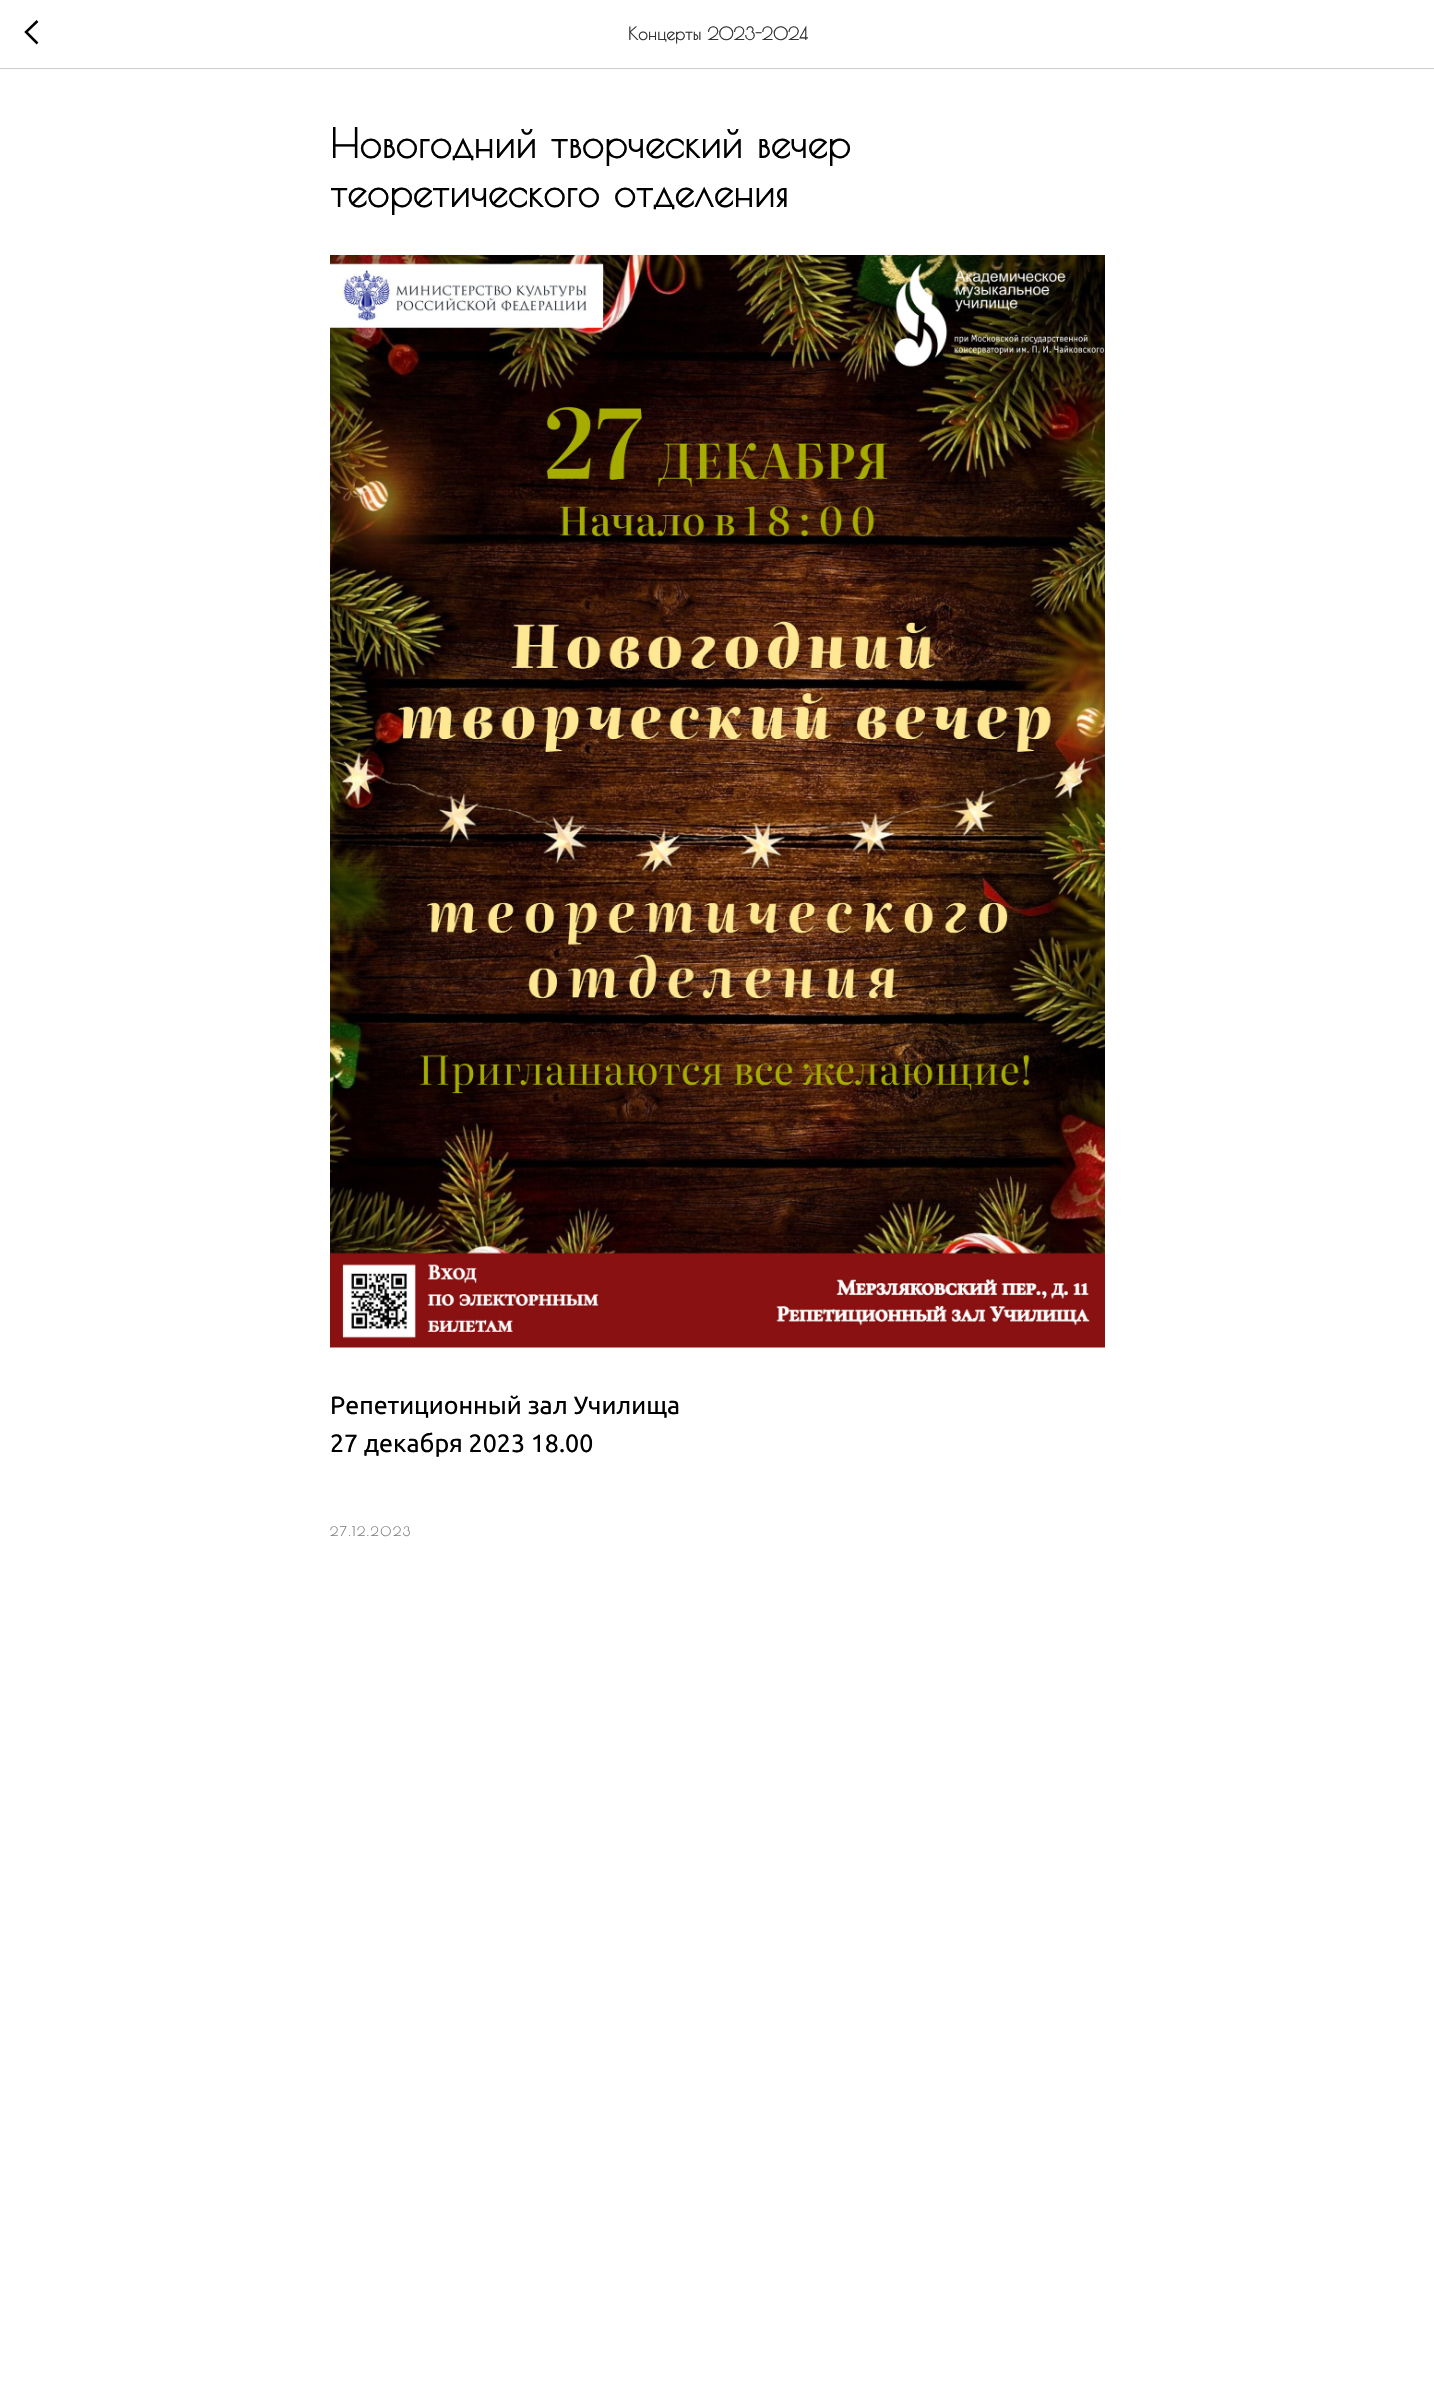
#include "include/core/SkBlurTypes.h"
#include "include/core/SkCanvas.h"
#include "include/core/SkData.h"
#include "include/core/SkFont.h"
#include "include/core/SkFontMgr.h"
#include "include/core/SkImage.h"
#include "include/core/SkMaskFilter.h"
#include "include/core/SkPaint.h"
#include "include/core/SkPathBuilder.h"
#include "include/core/SkTextBlob.h"
#include "include/effects/SkDashPathEffect.h"
#include "include/effects/SkGradientShader.h"
#include "include/utils/SkParsePath.h"

extern sk_sp<SkFontMgr> fontMgr;

static SkFont font(const char* family, int weight, float size, bool italic = false) {
    SkFontStyle style(weight, SkFontStyle::kNormal_Width,
        italic ? SkFontStyle::kItalic_Slant : SkFontStyle::kUpright_Slant);
    SkFont result(fontMgr->matchFamilyStyle(family, style), size);
    result.setSubpixel(true);
    return result;
}

static void drawLabel(SkCanvas* canvas, const char* s, float x, float y, const SkFont& font, SkColor color) {
    SkPaint ink(SkColor4f::FromColor(color));
    ink.setAntiAlias(true);
    canvas->drawString(s, x, y, font, ink);
}

static void drawTracked(SkCanvas* canvas, const char* s, float x, float y, const SkFont& font, const SkPaint& ink, float letter, float word) {
    std::vector<SkGlyphID> glyphs(font.countText(s, strlen(s), SkTextEncoding::kUTF8));
    std::vector<float> xs(glyphs.size());
    font.textToGlyphs(s, strlen(s), SkTextEncoding::kUTF8, glyphs);
    font.getXPos(glyphs, xs, x);
    float extra = 0;
    for (size_t i = 0; i < glyphs.size(); i++) {
        xs[i] += extra;
        extra += letter + word * (glyphs[i] == font.unicharToGlyph(' '));
    }
    canvas->drawTextBlob(SkTextBlob::MakeFromPosHGlyphs(glyphs, xs, y, font), 0, 0, ink);
}

static void fillRect(SkCanvas* canvas, float x, float y, float w, float h, SkColor color) {
    SkPaint ink(SkColor4f::FromColor(color));
    ink.setAntiAlias(true);
    canvas->drawRect(SkRect::MakeXYWH(x, y, w, h), ink);
}

static void drawPhoto(SkCanvas* canvas, const char* path, float x, float y, float w, float h) {
    auto image = SkImages::DeferredFromEncodedData(SkData::MakeFromFileName(path));
    canvas->drawImageRect(image, SkRect::MakeXYWH(x, y, w, h), SkSamplingOptions());
}

static SkPath parsePath(const char* data, bool evenOdd = false) {
    SkPath result = *SkParsePath::FromSVGString(data);
    if (evenOdd) result.setFillType(SkPathFillType::kEvenOdd);
    return result;
}

void draw(SkCanvas* canvas) {
    SkPaint paint;
    paint.setAntiAlias(true);
    canvas->clear(0xFFFFFFFF);
    fillRect(canvas, 0, 68, 1434, 1, 0xFFCCCCCC);
    paint.setStroke(true);
    paint.setStrokeWidth(2.5f);
    paint.setColor(0xFF000000);
    canvas->drawPath(parsePath("M37.5 43.5L26 32L37.5 21"), paint);
    SkFont font1 = font("Poiret One", 700, 17.5f);
    drawLabel(canvas, "Концерты 2023-2024", 628, 40, font1, 0xFF333333);
    SkFont font2 = font("Poiret One", 700, 40);
    drawLabel(canvas, "Новогодний творческий вечер", 330, 158, font2, 0xFF000000);
    drawLabel(canvas, "теоретического отделения", 330, 207, font2, 0xFF000000);
    drawPhoto(canvas, "assets/img1.png", 330, 255, 775, 1093);
    SkFont font3 = font("Ubuntu", 400, 25);
    drawLabel(canvas, "Репетиционный зал Училища", 330, 1414, font3, 0xFF000000);
    drawLabel(canvas, "27 декабря 2023 18.00", 330, 1452, font3, 0xFF000000);
    SkFont font4 = font("Poiret One", 700, 12.5f);
    paint.setStroke(false);
    paint.setColor(0xFF808080);
    drawTracked(canvas, "27.12.2023", 330, 1536, font4, paint, 1.9f, 0);
}
